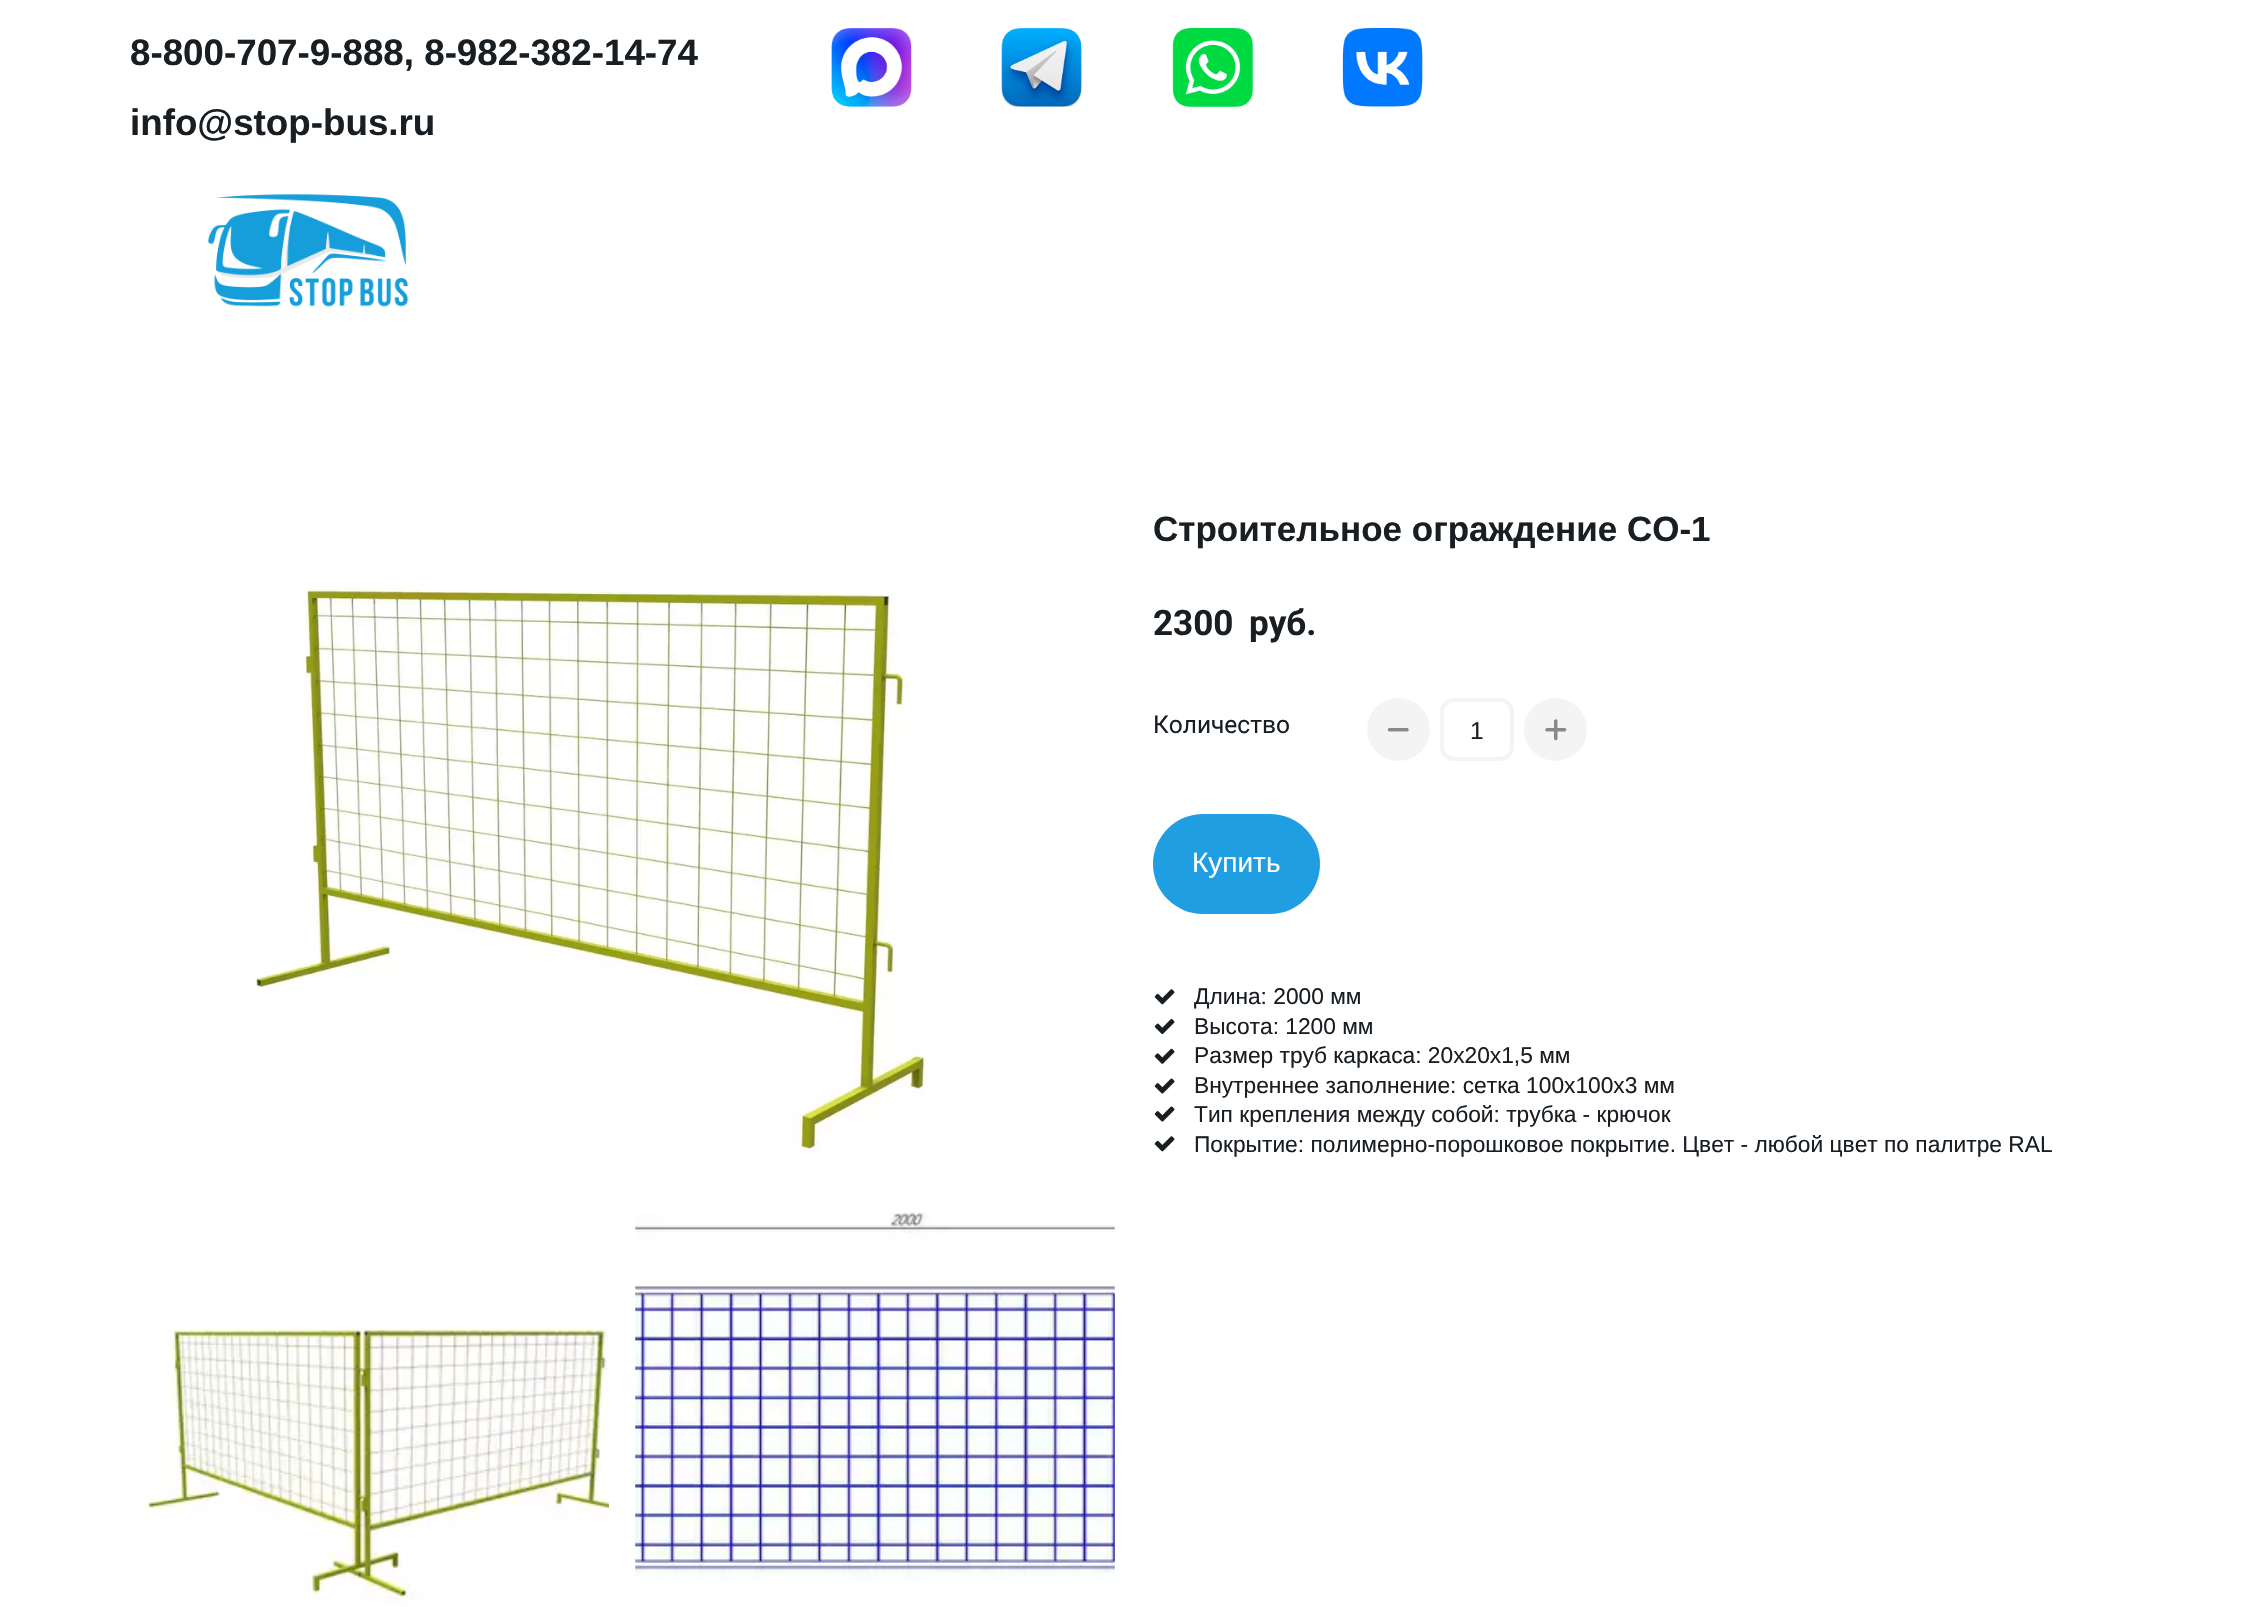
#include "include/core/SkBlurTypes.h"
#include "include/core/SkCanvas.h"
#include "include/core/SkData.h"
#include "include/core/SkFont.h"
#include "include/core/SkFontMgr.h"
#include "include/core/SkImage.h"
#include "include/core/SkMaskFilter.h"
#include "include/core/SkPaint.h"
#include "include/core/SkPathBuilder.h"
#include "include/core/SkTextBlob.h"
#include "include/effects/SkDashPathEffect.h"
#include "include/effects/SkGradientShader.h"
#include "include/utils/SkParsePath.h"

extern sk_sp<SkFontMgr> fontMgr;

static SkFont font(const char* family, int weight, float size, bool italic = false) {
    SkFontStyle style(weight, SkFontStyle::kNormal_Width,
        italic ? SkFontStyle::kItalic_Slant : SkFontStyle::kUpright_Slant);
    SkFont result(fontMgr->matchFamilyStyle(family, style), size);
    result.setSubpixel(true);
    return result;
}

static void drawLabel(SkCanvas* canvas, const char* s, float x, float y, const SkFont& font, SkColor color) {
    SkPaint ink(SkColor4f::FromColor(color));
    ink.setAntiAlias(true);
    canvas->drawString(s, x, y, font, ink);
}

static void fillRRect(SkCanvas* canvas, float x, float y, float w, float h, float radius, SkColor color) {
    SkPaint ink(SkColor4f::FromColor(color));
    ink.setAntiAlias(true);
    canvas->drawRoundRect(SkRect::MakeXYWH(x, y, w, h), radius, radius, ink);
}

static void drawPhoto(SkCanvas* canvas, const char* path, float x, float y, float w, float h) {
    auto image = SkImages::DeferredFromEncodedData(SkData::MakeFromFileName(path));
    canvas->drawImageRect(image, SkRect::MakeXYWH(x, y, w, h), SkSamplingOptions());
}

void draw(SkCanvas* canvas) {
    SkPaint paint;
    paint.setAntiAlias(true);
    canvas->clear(0xFFFFFFFF);
    SkFont font1 = font("Liberation Sans", 700, 36.75f);
    drawLabel(canvas, "8-800-707-9-888, 8-982-382-14-74", 130, 65, font1, 0xFF191E23);
    drawLabel(canvas, "info@stop-bus.ru", 130, 135, font1, 0xFF191E23);
    drawPhoto(canvas, "assets/img1.png", 831, 28, 81, 79);
    drawPhoto(canvas, "assets/img2.png", 1001, 28, 81, 79);
    drawPhoto(canvas, "assets/img3.png", 1172, 28, 81, 79);
    drawPhoto(canvas, "assets/img4.png", 1342, 28, 81, 79);
    drawPhoto(canvas, "assets/img5.png", 208, 194, 200, 113);
    drawPhoto(canvas, "assets/img6.png", 255, 588, 672, 565);
    SkFont font2 = font("Liberation Sans", 700, 35);
    drawLabel(canvas, "Строительное ограждение СО-1", 1153, 541, font2, 0xFF191E23);
    SkFont font3 = font("Roboto", 700, 35);
    drawLabel(canvas, "2300", 1153, 635, font3, 0xFF191E23);
    drawLabel(canvas, "руб.", 1249, 635, font3, 0xFF191E23);
    SkFont font4 = font("Roboto", 400, 24.5f);
    drawLabel(canvas, "Количество", 1153, 733, font4, 0xFF191E23);
    paint.setColor(0xFFF4F4F4);
    canvas->drawCircle(1398.5f, 729.5f, 31.5f, paint);
    drawPhoto(canvas, "assets/img7.png", 1387, 728, 22, 4);
    paint.setStroke(true);
    paint.setStrokeWidth(4);
    canvas->drawRoundRect(SkRect::MakeXYWH(1442, 700, 70, 59), 12, 12, paint);
    SkFont font5 = font("Liberation Sans", 400, 24.5f);
    drawLabel(canvas, "1", 1470, 739, font5, 0xFF191E23);
    paint.setStroke(false);
    canvas->drawCircle(1555.5f, 729.5f, 31.5f, paint);
    drawPhoto(canvas, "assets/img8.png", 1545, 719, 22, 22);
    fillRRect(canvas, 1153, 814, 167, 100, 50, 0xFF209EE2);
    SkFont font6 = font("Liberation Sans", 400, 28);
    drawLabel(canvas, "Купить", 1192, 872, font6, 0xFFFFFFFF);
    drawPhoto(canvas, "assets/img9.png", 1154, 989, 21, 16);
    SkFont font7 = font("Liberation Sans", 400, 22.75f);
    drawLabel(canvas, "Длина: 2000 мм", 1194, 1004, font7, 0xFF191E23);
    drawPhoto(canvas, "assets/img10.png", 1154, 1019, 21, 16);
    drawLabel(canvas, "Высота: 1200 мм", 1194, 1034, font7, 0xFF191E23);
    drawPhoto(canvas, "assets/img11.png", 1154, 1048, 21, 16);
    drawLabel(canvas, "Размер труб каркаса: 20х20х1,5 мм", 1194, 1063, font7, 0xFF191E23);
    drawPhoto(canvas, "assets/img12.png", 1154, 1078, 21, 16);
    drawLabel(canvas, "Внутреннее заполнение: сетка 100х100х3 мм", 1194, 1093, font7, 0xFF191E23);
    drawPhoto(canvas, "assets/img12.png", 1154, 1106, 21, 16);
    drawLabel(canvas, "Тип крепления между собой: трубка - крючок", 1194, 1122, font7, 0xFF191E23);
    drawPhoto(canvas, "assets/img9.png", 1154, 1136, 21, 16);
    drawLabel(canvas, "Покрытие: полимерно-порошковое покрытие. Цвет - любой цвет по палитре RAL", 1194, 1152, font7, 0xFF191E23);
    drawPhoto(canvas, "assets/img13.png", 140, 1328, 469, 278);
    drawPhoto(canvas, "assets/img14.png", 635, 1212, 480, 369);
}
